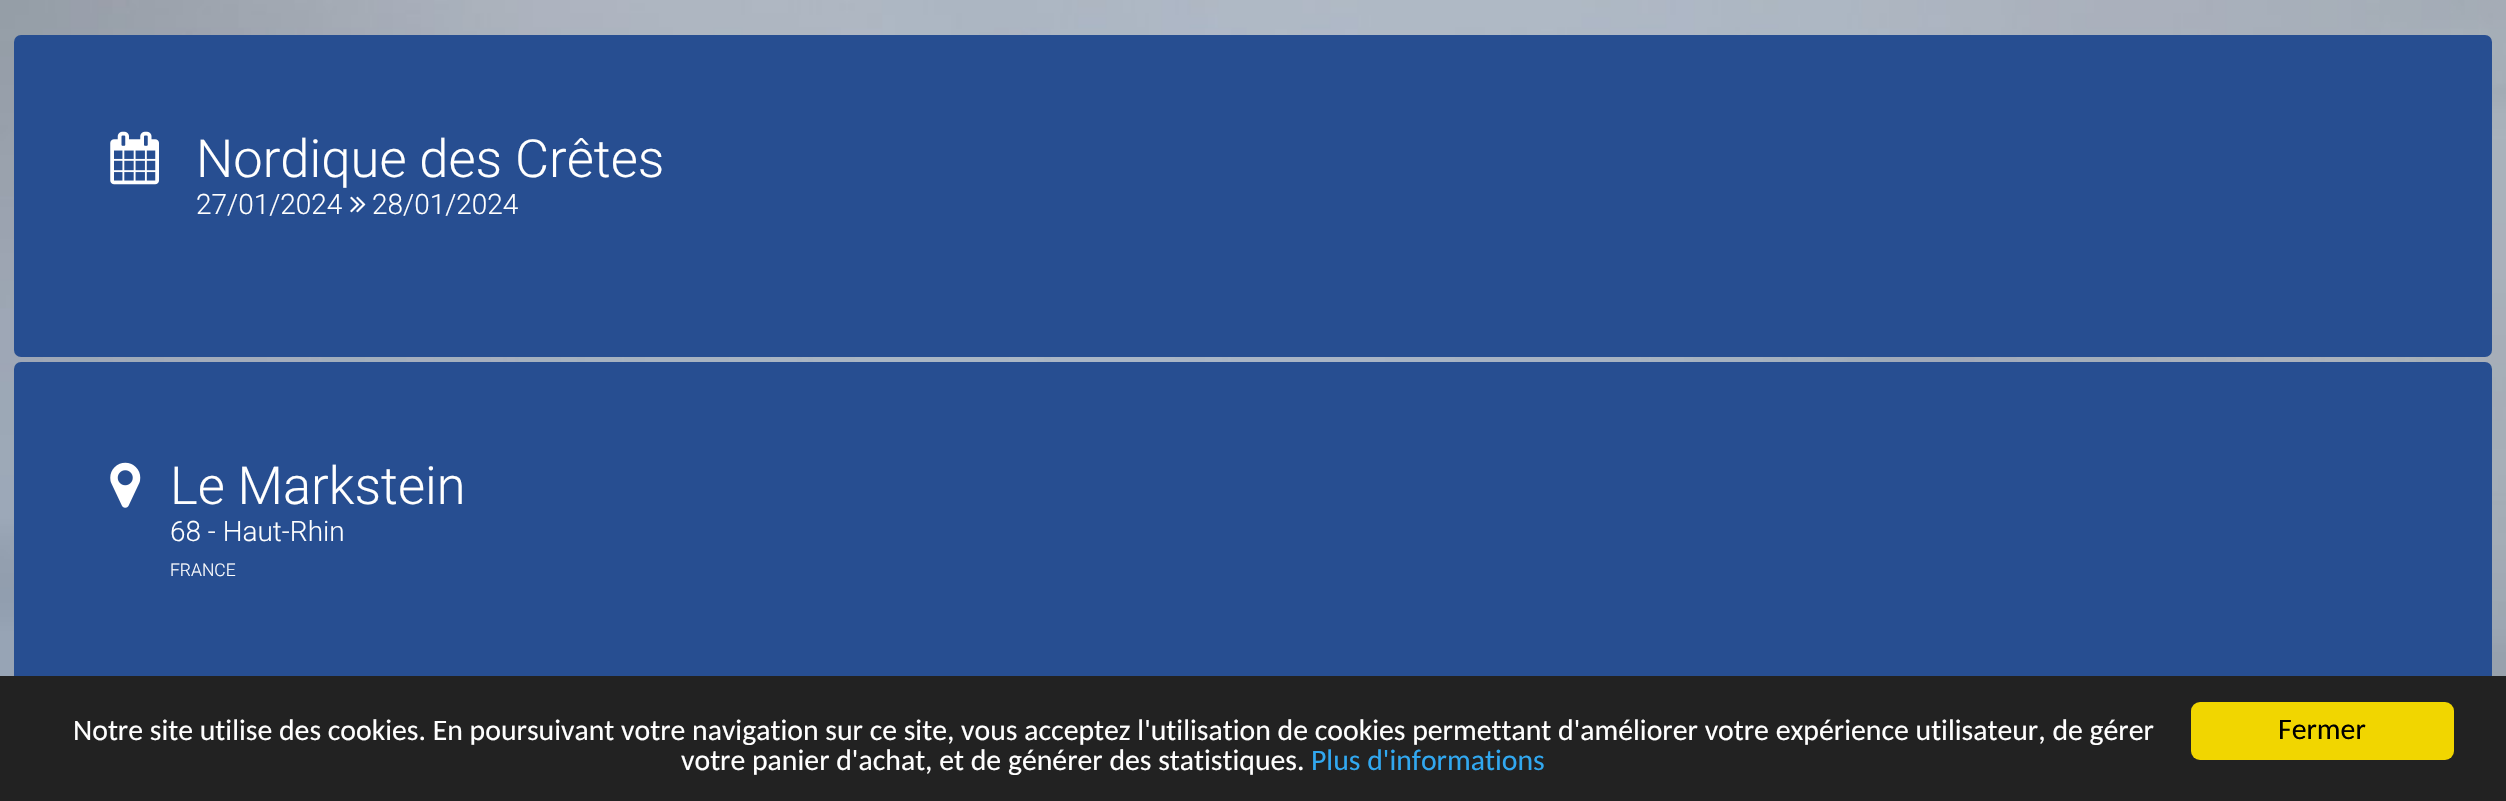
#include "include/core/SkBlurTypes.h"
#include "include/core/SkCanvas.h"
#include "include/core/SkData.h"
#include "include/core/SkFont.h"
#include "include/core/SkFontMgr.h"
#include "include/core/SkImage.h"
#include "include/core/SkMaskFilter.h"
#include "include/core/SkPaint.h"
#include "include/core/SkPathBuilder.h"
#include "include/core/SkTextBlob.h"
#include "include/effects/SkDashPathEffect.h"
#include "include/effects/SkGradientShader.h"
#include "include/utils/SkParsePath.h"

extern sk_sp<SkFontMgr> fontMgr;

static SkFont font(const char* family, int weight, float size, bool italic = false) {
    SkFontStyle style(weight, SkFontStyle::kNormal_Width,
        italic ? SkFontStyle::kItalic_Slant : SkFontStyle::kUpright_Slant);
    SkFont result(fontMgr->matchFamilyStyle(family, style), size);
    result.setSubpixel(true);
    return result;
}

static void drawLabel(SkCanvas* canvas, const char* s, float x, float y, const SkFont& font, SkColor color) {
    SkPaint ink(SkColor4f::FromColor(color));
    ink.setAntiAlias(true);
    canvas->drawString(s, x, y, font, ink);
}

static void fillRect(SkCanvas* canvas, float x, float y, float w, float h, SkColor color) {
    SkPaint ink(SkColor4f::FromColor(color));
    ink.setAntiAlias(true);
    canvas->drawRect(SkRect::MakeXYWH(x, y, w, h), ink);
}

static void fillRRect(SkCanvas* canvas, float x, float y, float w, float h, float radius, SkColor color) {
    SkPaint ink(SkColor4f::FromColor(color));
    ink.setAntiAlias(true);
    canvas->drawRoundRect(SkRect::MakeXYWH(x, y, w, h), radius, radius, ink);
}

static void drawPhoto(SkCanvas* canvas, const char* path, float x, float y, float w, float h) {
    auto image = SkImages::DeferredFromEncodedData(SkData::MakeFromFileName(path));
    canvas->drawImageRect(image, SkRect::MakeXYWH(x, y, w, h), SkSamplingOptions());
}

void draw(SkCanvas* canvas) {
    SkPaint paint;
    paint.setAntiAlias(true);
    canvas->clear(0xFFFFFFFF);
    drawPhoto(canvas, "assets/img1.png", 0, 0, 2506, 676);
    fillRRect(canvas, 14, 35, 2478, 322, 7, 0xFF274E91);
    drawPhoto(canvas, "assets/img2.png", 110, 131, 49, 54);
    SkFont font1 = font("Roboto", 300, 52.5f);
    drawLabel(canvas, "Nordique des Crêtes", 196, 177, font1, 0xFFFFFFFF);
    SkFont font2 = font("Roboto", 300, 28);
    drawLabel(canvas, "27/01/2024", 196, 214, font2, 0xFFFFFFFF);
    drawPhoto(canvas, "assets/img3.png", 350, 196, 16, 17);
    drawLabel(canvas, "28/01/2024", 372, 214, font2, 0xFFFFFFFF);
    fillRRect(canvas, 14, 362, 2478, 322, 7, 0xFF274E91);
    drawPhoto(canvas, "assets/img4.png", 110, 462, 31, 46);
    drawLabel(canvas, "Le Markstein", 170, 504, font1, 0xFFFFFFFF);
    drawLabel(canvas, "68 - Haut-Rhin", 170, 541, font2, 0xFFFFFFFF);
    SkFont font3 = font("Roboto", 300, 17.5f);
    drawLabel(canvas, "FRANCE", 170, 576, font3, 0xFFFFFFFF);
    fillRect(canvas, 0, 676, 2506, 125, 0xFF222222);
    SkFont font4 = font("Carlito", 400, 29.75f);
    drawLabel(canvas, "Notre site utilise des cookies. En poursuivant votre navigation sur ce site, vous acceptez l'utilisation de cookies permettant d'améliorer votre expérience utilisateur, de gérer", 73, 740, font4, 0xFFFFFFFF);
    drawLabel(canvas, "votre panier d'achat, et de générer des statistiques.", 681, 770, font4, 0xFFFFFFFF);
    drawLabel(canvas, "Plus d'informations", 1311, 770, font4, 0xFF31A8F0);
    fillRRect(canvas, 2191, 702, 263, 58, 9, 0xFFF1D600);
    drawLabel(canvas, "Fermer", 2278, 739, font4, 0xFF000000);
}
